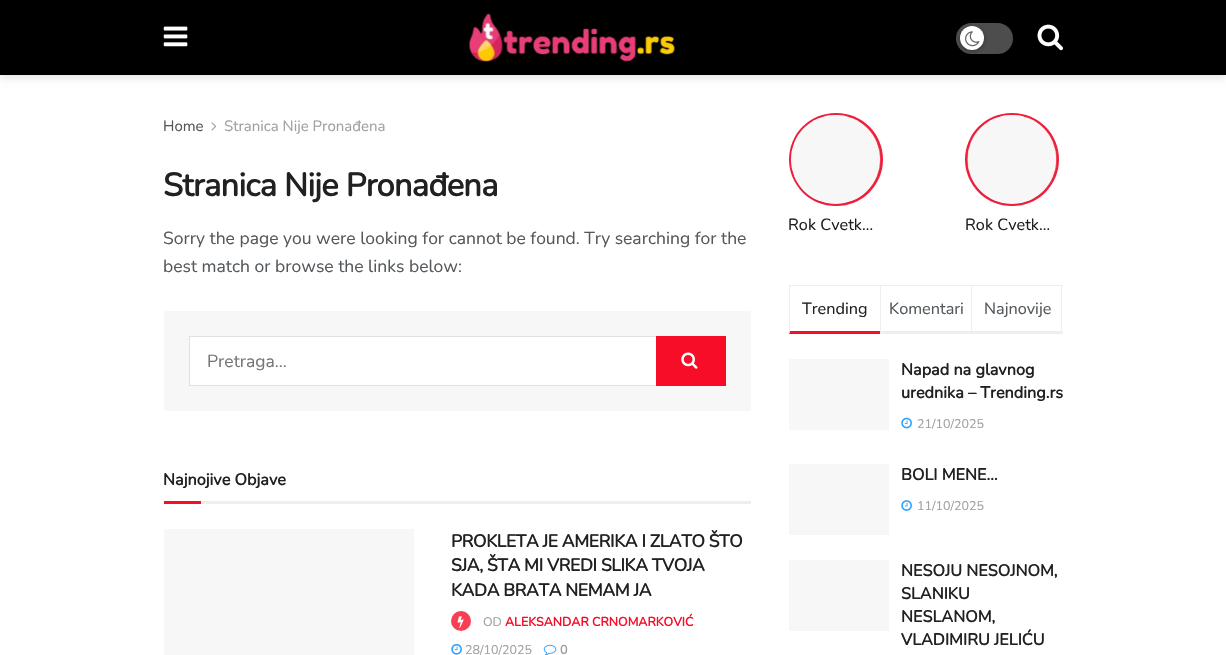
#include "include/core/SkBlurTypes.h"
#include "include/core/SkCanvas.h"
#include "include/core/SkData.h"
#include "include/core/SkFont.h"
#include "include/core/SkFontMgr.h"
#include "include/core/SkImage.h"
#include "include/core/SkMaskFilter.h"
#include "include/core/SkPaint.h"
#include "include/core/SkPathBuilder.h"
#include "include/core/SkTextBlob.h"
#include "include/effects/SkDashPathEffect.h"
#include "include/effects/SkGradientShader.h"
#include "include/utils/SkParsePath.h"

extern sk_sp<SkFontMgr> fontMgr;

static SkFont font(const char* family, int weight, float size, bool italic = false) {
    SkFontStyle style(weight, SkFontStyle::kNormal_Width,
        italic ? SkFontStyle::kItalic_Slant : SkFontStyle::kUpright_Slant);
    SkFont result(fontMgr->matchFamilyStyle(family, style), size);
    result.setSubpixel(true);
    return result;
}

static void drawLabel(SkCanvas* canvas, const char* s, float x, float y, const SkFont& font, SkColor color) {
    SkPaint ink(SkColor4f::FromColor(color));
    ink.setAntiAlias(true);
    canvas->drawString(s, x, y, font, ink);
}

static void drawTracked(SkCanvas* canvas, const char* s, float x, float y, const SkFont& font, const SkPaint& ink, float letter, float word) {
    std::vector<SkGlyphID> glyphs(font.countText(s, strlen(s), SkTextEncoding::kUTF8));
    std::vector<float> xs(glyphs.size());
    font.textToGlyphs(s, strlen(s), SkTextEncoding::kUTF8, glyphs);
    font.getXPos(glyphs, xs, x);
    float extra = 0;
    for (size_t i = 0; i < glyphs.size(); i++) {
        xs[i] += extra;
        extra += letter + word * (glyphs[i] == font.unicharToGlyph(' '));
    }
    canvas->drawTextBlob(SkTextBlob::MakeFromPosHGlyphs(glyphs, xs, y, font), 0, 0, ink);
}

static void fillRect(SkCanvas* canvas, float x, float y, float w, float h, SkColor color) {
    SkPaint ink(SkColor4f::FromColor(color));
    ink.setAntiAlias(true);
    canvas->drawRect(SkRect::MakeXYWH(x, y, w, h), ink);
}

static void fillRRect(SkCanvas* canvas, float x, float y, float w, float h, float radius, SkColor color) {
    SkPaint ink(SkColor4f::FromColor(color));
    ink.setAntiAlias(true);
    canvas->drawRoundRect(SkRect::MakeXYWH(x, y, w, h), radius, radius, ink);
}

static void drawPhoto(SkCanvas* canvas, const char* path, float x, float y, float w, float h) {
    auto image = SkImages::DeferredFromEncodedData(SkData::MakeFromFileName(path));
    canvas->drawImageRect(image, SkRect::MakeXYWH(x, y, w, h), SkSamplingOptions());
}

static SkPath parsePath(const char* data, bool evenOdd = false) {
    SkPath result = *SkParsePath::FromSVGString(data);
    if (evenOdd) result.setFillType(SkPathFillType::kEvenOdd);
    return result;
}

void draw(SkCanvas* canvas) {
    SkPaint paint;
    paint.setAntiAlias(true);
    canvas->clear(0xFFFFFFFF);
    paint.setColor(0x1A000000);
    paint.setMaskFilter(SkMaskFilter::MakeBlur(kNormal_SkBlurStyle, 4));
    canvas->drawRect(SkRect::MakeXYWH(0, 3, 1226, 75), paint);
    paint.setMaskFilter(nullptr);
    fillRect(canvas, 0, 0, 1226, 75, 0xFF000000);
    drawPhoto(canvas, "assets/img1.png", 163, 26, 25, 21);
    drawPhoto(canvas, "assets/img2.png", 468, 13, 207, 49);
    fillRRect(canvas, 956, 23, 57, 31, 15.5f, 0xFF4D4D4D);
    paint.setColor(0x4D000000);
    paint.setMaskFilter(SkMaskFilter::MakeBlur(kNormal_SkBlurStyle, 2));
    canvas->drawRoundRect(SkRect::MakeXYWH(960, 28, 24, 23), 11.5f, 11.5f, paint);
    paint.setMaskFilter(nullptr);
    paint.setColor(0xFFFFFFFF);
    canvas->drawCircle(972, 38, 12, paint);
    drawPhoto(canvas, "assets/img3.png", 965, 31, 15, 16);
    drawPhoto(canvas, "assets/img4.png", 1037, 24, 26, 27);
    SkFont font1 = font("Nunito", 200, 15);
    drawLabel(canvas, "Home", 163, 131, font1, 0xFF53585C);
    drawPhoto(canvas, "assets/img5.png", 211, 122, 6, 9);
    drawLabel(canvas, "Stranica Nije Pronađena", 224, 131, font1, 0xFFA0A0A0);
    SkFont font2 = font("Nunito", 700, 32.5f);
    paint.setColor(0xFF212121);
    drawTracked(canvas, "Stranica Nije Pronađena", 163, 196, font2, paint, -0.65f, 0);
    SkFont font3 = font("Nunito", 200, 17.5f);
    drawLabel(canvas, "Sorry the page you were looking for cannot be found. Try searching for the", 163, 244, font3, 0xFF53585C);
    drawLabel(canvas, "best match or browse the links below:", 163, 272, font3, 0xFF53585C);
    fillRect(canvas, 164, 311, 587, 100, 0xFFF7F7F7);
    fillRect(canvas, 190, 337, 466, 48, 0xFFFFFFFF);
    paint.setStroke(true);
    paint.setStrokeWidth(1);
    paint.setColor(0xFFE0E0E0);
    canvas->drawRect(SkRect::MakeXYWH(189.5f, 336.5f, 536, 49), paint);
    drawLabel(canvas, "Pretraga...", 207, 367, font3, 0xFF757575);
    fillRect(canvas, 656, 336, 70, 50, 0xFFF70D28);
    drawPhoto(canvas, "assets/img6.png", 681, 352, 17, 17);
    fillRect(canvas, 201, 501, 550, 3, 0xFFEEEEEE);
    SkFont font4 = font("Nunito", 700, 16.25f);
    drawLabel(canvas, "Najnojive Objave", 163, 485, font4, 0xFF212121);
    fillRect(canvas, 164, 501, 37, 3, 0xFFF70D28);
    fillRect(canvas, 164, 529, 250, 126, 0xFFF7F7F7);
    SkFont font5 = font("Nunito", 700, 17.5f);
    paint.setStroke(false);
    paint.setColor(0xFF212121);
    drawTracked(canvas, "PROKLETA JE AMERIKA I ZLATO ŠTO", 451, 547, font5, paint, -0.35f, 0);
    drawTracked(canvas, "SJA, ŠTA MI VREDI SLIKA TVOJA", 451, 571, font5, paint, -0.35f, 0);
    drawTracked(canvas, "KADA BRATA NEMAM JA", 451, 596, font5, paint, -0.35f, 0);
    paint.setColor(0xFFF93D53);
    canvas->drawCircle(461, 621, 10, paint);
    drawPhoto(canvas, "assets/img7.png", 457, 616, 7, 12);
    SkFont font6 = font("Nunito", 200, 12.5f);
    drawLabel(canvas, "OD", 483, 626, font6, 0xFFA0A0A0);
    SkFont font7 = font("Nunito", 700, 12.5f);
    drawLabel(canvas, "ALEKSANDAR CRNOMARKOVIĆ", 505, 626, font7, 0xFFF70D28);
    drawPhoto(canvas, "assets/img8.png", 451, 643, 11, 12);
    drawLabel(canvas, "28/10/2025", 465, 654, font6, 0xFFA0A0A0);
    drawPhoto(canvas, "assets/img9.png", 543, 644, 14, 11);
    drawLabel(canvas, "0", 560, 654, font7, 0xFFA0A0A0);
    fillRRect(canvas, 789, 113, 94, 93, 46.5f, 0xFFEE1F3C);
    paint.setColor(0xFFF7F7F7);
    canvas->drawCircle(835.5f, 159.5f, 44.5f, paint);
    drawPhoto(canvas, "assets/img10.png", 791, 115, 90, 89);
    SkFont font8 = font("Nunito", 200, 16.25f);
    drawLabel(canvas, "Rok Cvetk…", 788, 230, font8, 0xFF212121);
    fillRRect(canvas, 965, 113, 94, 93, 46.5f, 0xFFEE1F3C);
    fillRRect(canvas, 968, 115, 88, 89, 44, 0xFFF7F7F7);
    drawPhoto(canvas, "assets/img11.png", 967, 115, 90, 89);
    drawLabel(canvas, "Rok Cvetk…", 965, 230, font8, 0xFF212121);
    fillRect(canvas, 789, 285, 274, 1, 0xFFEEEEEE);
    paint.setColor(0xFFF70D28);
    canvas->drawPath(parsePath("M880 334H789L790 331H880Z"), paint);
    paint.setColor(0xFFEEEEEE);
    canvas->drawPath(parsePath("M789 334V285L790 286V331Z"), paint);
    drawLabel(canvas, "Trending", 802, 314, font8, 0xFF212121);
    fillRect(canvas, 880, 331, 91, 3, 0xFFEEEEEE);
    fillRect(canvas, 880, 285, 1, 49, 0xFFEEEEEE);
    drawLabel(canvas, "Komentari", 889, 314, font8, 0xFF53585C);
    fillRect(canvas, 1061, 285, 1, 49, 0xFFEEEEEE);
    fillRect(canvas, 971, 331, 92, 3, 0xFFEEEEEE);
    fillRect(canvas, 971, 285, 1, 49, 0xFFEEEEEE);
    drawLabel(canvas, "Najnovije", 984, 314, font8, 0xFF53585C);
    fillRect(canvas, 789, 359, 100, 71, 0xFFF7F7F7);
    drawLabel(canvas, "Napad na glavnog", 901, 375, font4, 0xFF212121);
    drawLabel(canvas, "urednika – Trending.rs", 901, 398, font4, 0xFF212121);
    drawPhoto(canvas, "assets/img12.png", 901, 417, 11, 12);
    drawLabel(canvas, "21/10/2025", 917, 428, font6, 0xFFA0A0A0);
    fillRect(canvas, 789, 464, 100, 71, 0xFFF7F7F7);
    drawLabel(canvas, "BOLI MENE…", 901, 480, font4, 0xFF212121);
    drawPhoto(canvas, "assets/img13.png", 901, 500, 11, 11);
    drawLabel(canvas, "11/10/2025", 917, 510, font6, 0xFFA0A0A0);
    fillRect(canvas, 789, 560, 100, 71, 0xFFF7F7F7);
    drawLabel(canvas, "NESOJU NESOJNOM,", 901, 576, font4, 0xFF212121);
    drawLabel(canvas, "SLANIKU", 901, 599, font4, 0xFF212121);
    drawLabel(canvas, "NESLANOM,", 901, 622, font4, 0xFF212121);
    drawLabel(canvas, "VLADIMIRU JELIĆU", 901, 645, font4, 0xFF212121);
}
